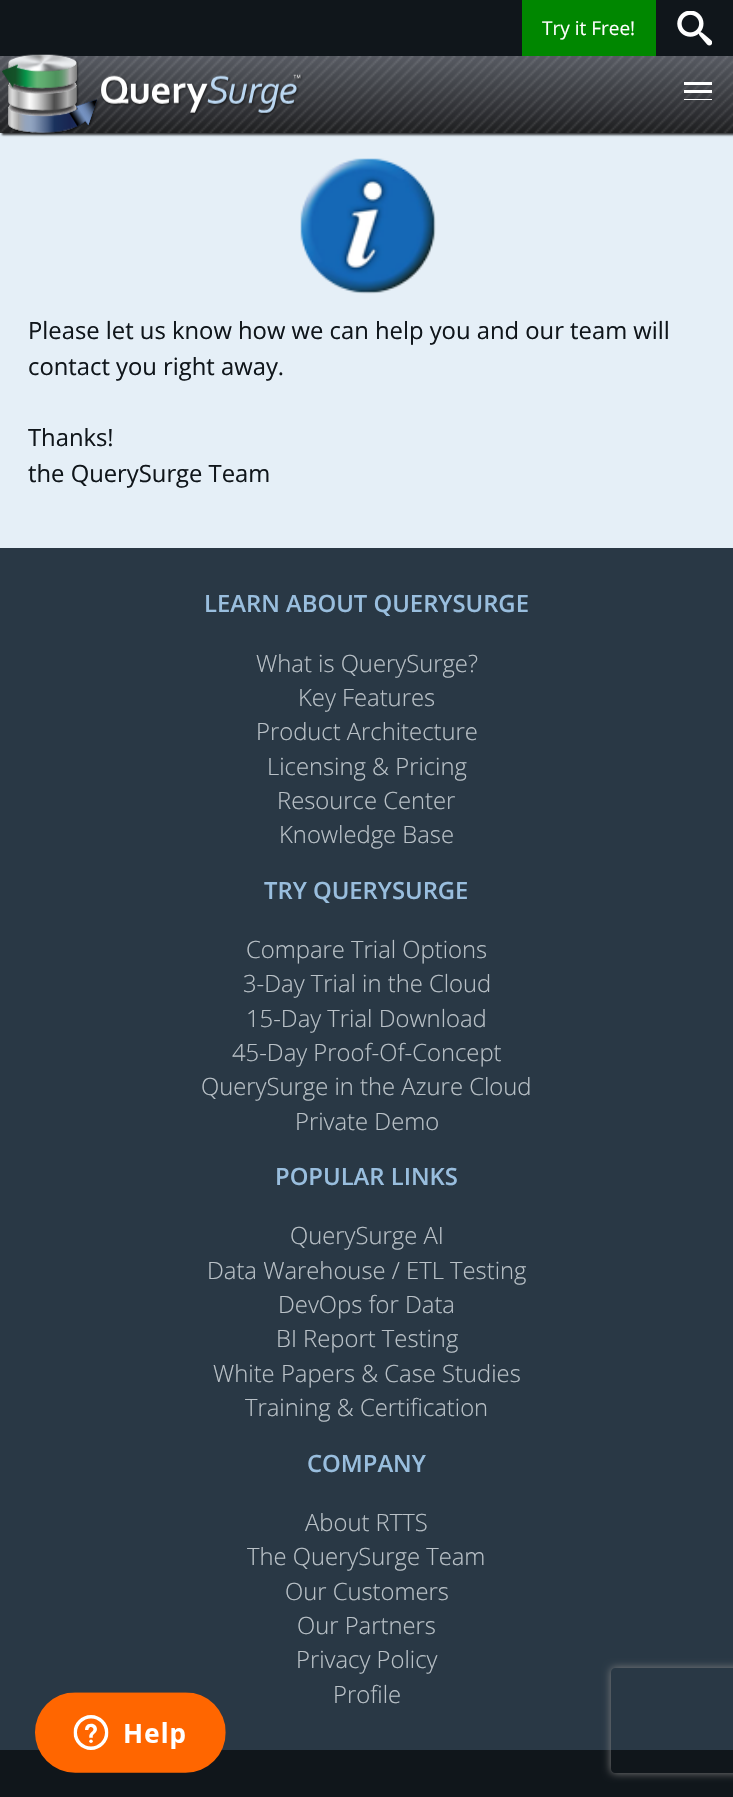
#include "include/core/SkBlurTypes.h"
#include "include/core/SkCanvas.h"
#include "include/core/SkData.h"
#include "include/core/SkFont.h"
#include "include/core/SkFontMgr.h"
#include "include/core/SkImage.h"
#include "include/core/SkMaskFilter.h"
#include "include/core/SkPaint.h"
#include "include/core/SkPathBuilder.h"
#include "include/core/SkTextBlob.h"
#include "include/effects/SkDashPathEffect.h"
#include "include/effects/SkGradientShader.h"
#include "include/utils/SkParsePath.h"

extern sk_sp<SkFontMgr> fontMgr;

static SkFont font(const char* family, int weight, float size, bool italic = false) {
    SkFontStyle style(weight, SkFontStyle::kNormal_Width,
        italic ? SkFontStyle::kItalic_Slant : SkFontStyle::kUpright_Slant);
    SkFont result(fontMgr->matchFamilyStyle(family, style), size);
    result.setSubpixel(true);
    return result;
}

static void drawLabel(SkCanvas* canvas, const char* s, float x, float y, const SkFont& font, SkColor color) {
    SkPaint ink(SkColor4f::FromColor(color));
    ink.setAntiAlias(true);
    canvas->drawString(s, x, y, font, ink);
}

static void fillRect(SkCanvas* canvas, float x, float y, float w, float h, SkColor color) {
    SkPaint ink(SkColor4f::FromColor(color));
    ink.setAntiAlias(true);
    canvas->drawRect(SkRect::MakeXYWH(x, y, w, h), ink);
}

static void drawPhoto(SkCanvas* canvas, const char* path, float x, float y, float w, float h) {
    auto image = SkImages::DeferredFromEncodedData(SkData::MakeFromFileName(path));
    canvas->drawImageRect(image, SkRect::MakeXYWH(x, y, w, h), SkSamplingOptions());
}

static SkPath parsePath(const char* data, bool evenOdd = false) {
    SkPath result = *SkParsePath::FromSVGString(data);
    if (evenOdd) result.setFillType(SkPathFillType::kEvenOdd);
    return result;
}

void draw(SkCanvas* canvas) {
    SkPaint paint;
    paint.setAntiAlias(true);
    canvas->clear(0xFF10161B);
    fillRect(canvas, 0, 133, 733, 415, 0xFFE5EFF7);
    paint.setColor(0xBF000000);
    paint.setMaskFilter(SkMaskFilter::MakeBlur(kNormal_SkBlurStyle, 1));
    canvas->drawRect(SkRect::MakeXYWH(2, 58, 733, 77), paint);
    paint.setMaskFilter(nullptr);
    fillRect(canvas, 522, 0, 134, 56, 0xFF008700);
    SkFont font1 = font("Open Sans", 400, 19);
    drawLabel(canvas, "Try it Free!", 542, 35, font1, 0xFFFFFFFF);
    drawPhoto(canvas, "assets/img1.png", 677, 11, 35, 35);
    drawPhoto(canvas, "assets/img2.png", 0, 56, 733, 77);
    drawPhoto(canvas, "assets/img3.png", 2, 54, 301, 82);
    fillRect(canvas, 684, 82, 28, 3, 0xFFFFFFFF);
    fillRect(canvas, 684, 90, 28, 3, 0xFFFFFFFF);
    fillRect(canvas, 684, 99, 28, 1, 0xFFFFFFFF);
    drawPhoto(canvas, "assets/img4.png", 300, 158, 136, 136);
    SkFont font2 = font("Open Sans", 400, 23.8f);
    drawLabel(canvas, "Please let us know how we can help you and our team will", 28, 339, font2, 0xFF10161B);
    drawLabel(canvas, "contact you right away.", 28, 375, font2, 0xFF10161B);
    drawLabel(canvas, "Thanks!", 28, 446, font2, 0xFF10161B);
    drawLabel(canvas, "the QuerySurge Team", 28, 482, font2, 0xFF10161B);
    fillRect(canvas, 0, 548, 733, 1202, 0xFF293845);
    SkFont font3 = font("Open Sans", 600, 23.8f);
    drawLabel(canvas, "LEARN ABOUT QUERYSURGE", 204, 612, font3, 0xFF99BEDE);
    SkFont font4 = font("Open Sans", 300, 23.8f);
    drawLabel(canvas, "What is QuerySurge?", 256, 672, font4, 0xFFB9C1C7);
    drawLabel(canvas, "Key Features", 298, 706, font4, 0xFFB9C1C7);
    drawLabel(canvas, "Product Architecture", 256, 740, font4, 0xFFB9C1C7);
    drawLabel(canvas, "Licensing & Pricing", 267, 775, font4, 0xFFB9C1C7);
    drawLabel(canvas, "Resource Center", 277, 809, font4, 0xFFB9C1C7);
    drawLabel(canvas, "Knowledge Base", 279, 843, font4, 0xFFB9C1C7);
    drawLabel(canvas, "TRY QUERYSURGE", 264, 899, font3, 0xFF99BEDE);
    drawLabel(canvas, "Compare Trial Options", 246, 958, font4, 0xFFB9C1C7);
    drawLabel(canvas, "3-Day Trial in the Cloud", 243, 992, font4, 0xFFB9C1C7);
    drawLabel(canvas, "15-Day Trial Download", 246, 1027, font4, 0xFFB9C1C7);
    drawLabel(canvas, "45-Day Proof-Of-Concept", 232, 1061, font4, 0xFFB9C1C7);
    drawLabel(canvas, "QuerySurge in the Azure Cloud", 201, 1095, font4, 0xFFB9C1C7);
    drawLabel(canvas, "Private Demo", 295, 1130, font4, 0xFFB9C1C7);
    drawLabel(canvas, "POPULAR LINKS", 275, 1185, font3, 0xFF99BEDE);
    drawLabel(canvas, "QuerySurge AI", 290, 1244, font4, 0xFFB9C1C7);
    drawLabel(canvas, "Data Warehouse / ETL Testing", 207, 1279, font4, 0xFFB9C1C7);
    drawLabel(canvas, "DevOps for Data", 278, 1313, font4, 0xFFB9C1C7);
    drawLabel(canvas, "BI Report Testing", 276, 1347, font4, 0xFFB9C1C7);
    drawLabel(canvas, "White Papers & Case Studies", 213, 1382, font4, 0xFFB9C1C7);
    drawLabel(canvas, "Training & Certification", 245, 1416, font4, 0xFFB9C1C7);
    drawLabel(canvas, "COMPANY", 307, 1472, font3, 0xFF99BEDE);
    drawLabel(canvas, "About RTTS", 305, 1531, font4, 0xFFB9C1C7);
    drawLabel(canvas, "The QuerySurge Team", 247, 1565, font4, 0xFFB9C1C7);
    drawLabel(canvas, "Our Customers", 285, 1600, font4, 0xFFB9C1C7);
    drawLabel(canvas, "Our Partners", 297, 1634, font4, 0xFFB9C1C7);
    drawLabel(canvas, "Privacy Policy", 296, 1668, font4, 0xFFB9C1C7);
    drawLabel(canvas, "Profile", 333, 1703, font4, 0xFFB9C1C7);
    drawPhoto(canvas, "assets/img5.png", 35, 1692, 191, 81);
    canvas->save();
    canvas->clipPath(parsePath("M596 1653H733V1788H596ZM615 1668H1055C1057 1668 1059 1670 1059 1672V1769C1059 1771 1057 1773 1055 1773H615C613 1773 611 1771 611 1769V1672C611 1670 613 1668 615 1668Z", true), true);
    paint.setColor(0xFF808080);
    paint.setMaskFilter(SkMaskFilter::MakeBlur(kNormal_SkBlurStyle, 4.5f));
    canvas->drawRoundRect(SkRect::MakeXYWH(611, 1668, 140, 105), 4, 4, paint);
    paint.setMaskFilter(nullptr);
    canvas->restore();
}
